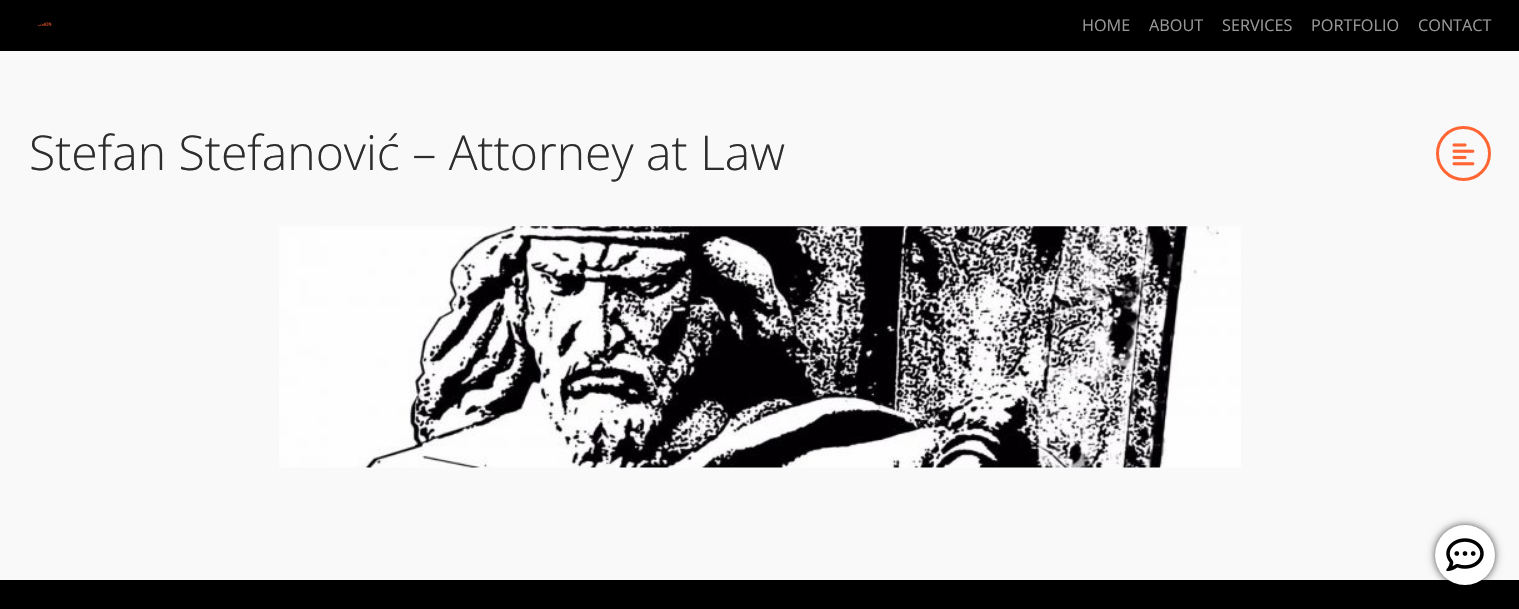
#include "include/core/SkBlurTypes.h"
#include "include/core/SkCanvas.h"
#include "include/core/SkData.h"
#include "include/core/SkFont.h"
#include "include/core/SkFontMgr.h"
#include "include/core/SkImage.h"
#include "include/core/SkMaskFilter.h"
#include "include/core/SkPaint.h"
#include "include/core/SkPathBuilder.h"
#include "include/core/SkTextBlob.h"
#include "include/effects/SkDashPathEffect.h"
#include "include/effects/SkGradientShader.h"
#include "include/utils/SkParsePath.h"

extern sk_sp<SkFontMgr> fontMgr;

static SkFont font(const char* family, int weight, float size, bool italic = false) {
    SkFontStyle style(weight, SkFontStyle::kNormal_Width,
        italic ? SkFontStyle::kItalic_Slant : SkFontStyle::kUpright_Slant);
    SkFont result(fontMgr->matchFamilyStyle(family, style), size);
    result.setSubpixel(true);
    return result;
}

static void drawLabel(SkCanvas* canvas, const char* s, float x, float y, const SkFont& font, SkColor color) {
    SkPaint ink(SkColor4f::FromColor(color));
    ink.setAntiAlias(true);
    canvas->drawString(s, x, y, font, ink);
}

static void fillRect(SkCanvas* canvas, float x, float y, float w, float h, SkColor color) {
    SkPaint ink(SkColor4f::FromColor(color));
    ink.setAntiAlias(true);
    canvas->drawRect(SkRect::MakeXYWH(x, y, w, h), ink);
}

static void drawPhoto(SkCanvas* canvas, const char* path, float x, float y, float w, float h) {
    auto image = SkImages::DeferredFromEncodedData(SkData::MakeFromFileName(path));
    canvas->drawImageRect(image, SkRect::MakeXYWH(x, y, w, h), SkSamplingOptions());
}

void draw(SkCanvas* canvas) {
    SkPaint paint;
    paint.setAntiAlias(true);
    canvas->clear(0xFFF9F9F9);
    fillRect(canvas, 0, 0, 1519, 51, 0xFF000000);
    drawPhoto(canvas, "assets/img1.png", 34, 22, 18, 5);
    SkFont font1 = font("Open Sans", 400, 16.25f);
    drawLabel(canvas, "HOME", 1082, 31, font1, 0xFF999999);
    drawLabel(canvas, "ABOUT", 1149, 31, font1, 0xFF999999);
    drawLabel(canvas, "SERVICES", 1222, 31, font1, 0xFF999999);
    drawLabel(canvas, "PORTFOLIO", 1311, 31, font1, 0xFF999999);
    drawLabel(canvas, "CONTACT", 1418, 31, font1, 0xFF999999);
    SkFont font2 = font("Open Sans", 300, 48.1f);
    drawLabel(canvas, "Stefan Stefanović – Attorney at Law", 29, 170, font2, 0xFF2D2D2D);
    paint.setStroke(true);
    paint.setStrokeWidth(3);
    paint.setColor(0xFFFF6633);
    canvas->drawCircle(1463.5f, 153.5f, 26, paint);
    drawPhoto(canvas, "assets/img2.png", 1452, 143, 23, 23);
    drawPhoto(canvas, "assets/img3.png", 279, 226, 962, 242);
    fillRect(canvas, 0, 580, 1519, 29, 0xFF000000);
    paint.setStroke(false);
    paint.setColor(0x80000000);
    paint.setMaskFilter(SkMaskFilter::MakeBlur(kNormal_SkBlurStyle, 5));
    canvas->drawRoundRect(SkRect::MakeXYWH(1435, 525, 60, 60), 30, 30, paint);
    paint.setMaskFilter(nullptr);
    paint.setMaskFilter(SkMaskFilter::MakeBlur(kNormal_SkBlurStyle, 4));
    canvas->drawRoundRect(SkRect::MakeXYWH(1441, 531, 48, 48), 24, 24, paint);
    paint.setMaskFilter(nullptr);
    paint.setMaskFilter(SkMaskFilter::MakeBlur(kNormal_SkBlurStyle, 4));
    canvas->drawRoundRect(SkRect::MakeXYWH(1441, 531, 48, 48), 24, 24, paint);
    paint.setMaskFilter(nullptr);
    paint.setMaskFilter(SkMaskFilter::MakeBlur(kNormal_SkBlurStyle, 4));
    canvas->drawRoundRect(SkRect::MakeXYWH(1441, 531, 48, 48), 24, 24, paint);
    paint.setMaskFilter(nullptr);
    paint.setMaskFilter(SkMaskFilter::MakeBlur(kNormal_SkBlurStyle, 4));
    canvas->drawRoundRect(SkRect::MakeXYWH(1441, 531, 48, 48), 24, 24, paint);
    paint.setMaskFilter(nullptr);
    paint.setMaskFilter(SkMaskFilter::MakeBlur(kNormal_SkBlurStyle, 4));
    canvas->drawRoundRect(SkRect::MakeXYWH(1441, 531, 48, 48), 24, 24, paint);
    paint.setMaskFilter(nullptr);
    paint.setColor(0xFFFFFFFF);
    canvas->drawCircle(1465, 555, 30, paint);
    drawPhoto(canvas, "assets/img4.png", 1446, 538, 38, 34);
}
